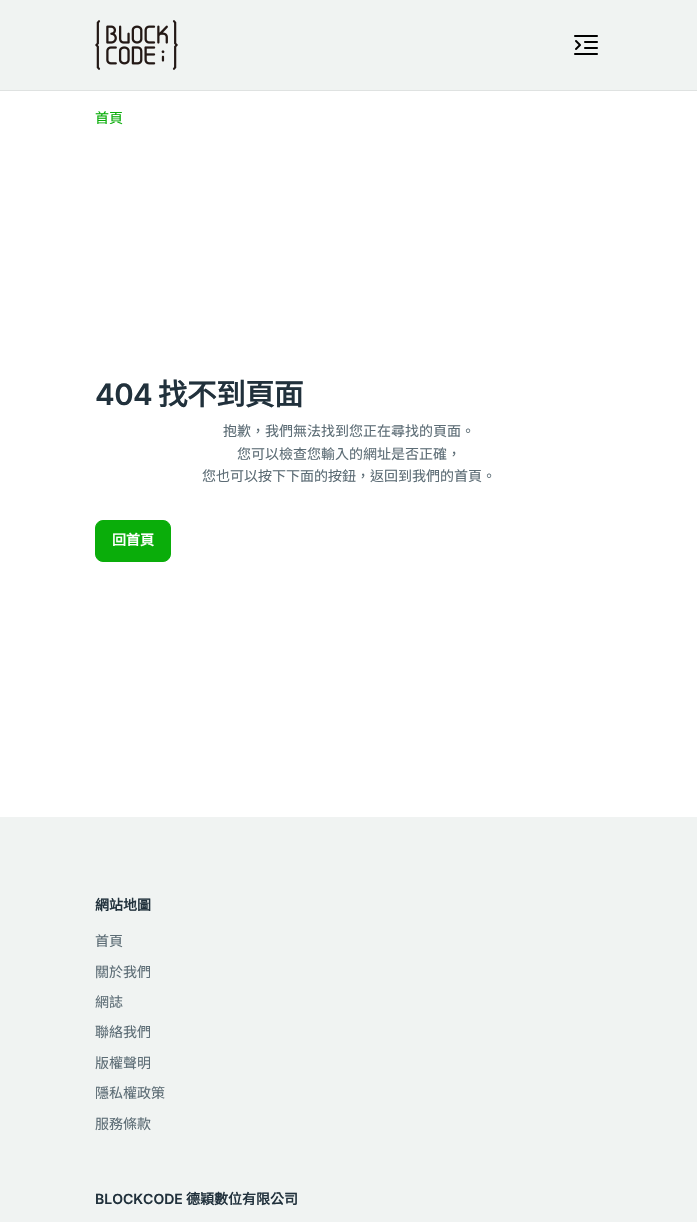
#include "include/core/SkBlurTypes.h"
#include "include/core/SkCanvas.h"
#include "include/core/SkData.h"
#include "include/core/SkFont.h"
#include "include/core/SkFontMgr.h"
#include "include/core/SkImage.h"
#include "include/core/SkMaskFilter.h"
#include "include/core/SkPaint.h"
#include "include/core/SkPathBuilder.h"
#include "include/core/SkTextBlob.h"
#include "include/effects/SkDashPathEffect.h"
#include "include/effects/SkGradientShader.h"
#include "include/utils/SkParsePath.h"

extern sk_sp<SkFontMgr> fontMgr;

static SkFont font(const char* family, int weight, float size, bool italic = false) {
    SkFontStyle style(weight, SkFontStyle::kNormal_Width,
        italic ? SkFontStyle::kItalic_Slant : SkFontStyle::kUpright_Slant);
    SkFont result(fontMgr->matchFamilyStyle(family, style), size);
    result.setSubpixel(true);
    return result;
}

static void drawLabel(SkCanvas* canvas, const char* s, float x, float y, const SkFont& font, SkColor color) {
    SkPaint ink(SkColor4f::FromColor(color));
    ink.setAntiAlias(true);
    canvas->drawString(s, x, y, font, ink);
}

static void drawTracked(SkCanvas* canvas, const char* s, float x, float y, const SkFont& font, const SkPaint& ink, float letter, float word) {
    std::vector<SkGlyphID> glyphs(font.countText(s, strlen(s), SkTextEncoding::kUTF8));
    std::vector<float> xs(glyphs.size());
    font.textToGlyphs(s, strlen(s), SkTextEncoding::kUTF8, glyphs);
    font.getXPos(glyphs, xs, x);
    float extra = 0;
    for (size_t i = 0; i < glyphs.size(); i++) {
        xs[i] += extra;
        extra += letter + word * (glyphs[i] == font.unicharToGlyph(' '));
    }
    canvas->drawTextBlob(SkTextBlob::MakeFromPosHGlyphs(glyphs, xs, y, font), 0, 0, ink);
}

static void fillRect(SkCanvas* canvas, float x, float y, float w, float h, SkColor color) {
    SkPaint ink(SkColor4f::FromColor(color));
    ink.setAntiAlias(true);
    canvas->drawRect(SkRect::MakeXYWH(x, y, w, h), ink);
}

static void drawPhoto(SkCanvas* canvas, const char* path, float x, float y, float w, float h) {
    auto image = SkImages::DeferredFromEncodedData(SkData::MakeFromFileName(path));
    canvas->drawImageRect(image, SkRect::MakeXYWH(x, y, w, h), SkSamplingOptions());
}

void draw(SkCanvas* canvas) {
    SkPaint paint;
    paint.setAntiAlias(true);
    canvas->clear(0xFFFFFFFF);
    fillRect(canvas, 0, 90, 697, 1, 0xFFDFE2E1);
    fillRect(canvas, 0, 0, 697, 90, 0xFFF0F3F2);
    drawPhoto(canvas, "assets/img1.png", 95, 20, 83, 50);
    drawPhoto(canvas, "assets/img2.png", 574, 35, 24, 20);
    SkFont font1 = font("Noto Sans CJK TC", 400, 14);
    drawLabel(canvas, "首頁", 95, 123, font1, 0xFF0AAD0A);
    SkFont font2 = font("Inter", 600, 29.5f);
    paint.setColor(0xFF21313C);
    drawTracked(canvas, "404", 95, 405, font2, paint, -0.5f, 0);
    SkFont font3 = font("Noto Sans CJK TC", 700, 29.5f);
    drawTracked(canvas, "找不到頁面", 158, 405, font3, paint, -0.5f, 0);
    drawLabel(canvas, "抱歉，我們無法找到您正在尋找的頁面。", 223, 436, font1, 0xFF5C6C75);
    drawLabel(canvas, "您可以檢查您輸入的網址是否正確，", 237, 459, font1, 0xFF5C6C75);
    drawLabel(canvas, "您也可以按下下面的按鈕，返回到我們的首頁。", 202, 481, font1, 0xFF5C6C75);
    paint.setColor(0xFF0AAD0A);
    canvas->drawRoundRect(SkRect::MakeXYWH(95.5f, 520.5f, 75, 41), 7.5f, 7.5f, paint);
    paint.setStroke(true);
    paint.setStrokeWidth(1);
    canvas->drawRoundRect(SkRect::MakeXYWH(95.5f, 520.5f, 75, 41), 7.5f, 7.5f, paint);
    SkFont font4 = font("Noto Sans CJK TC", 700, 14);
    drawLabel(canvas, "回首頁", 112, 545, font4, 0xFFFFFFFF);
    fillRect(canvas, 0, 817, 697, 405, 0xFFF0F3F2);
    drawLabel(canvas, "網站地圖", 95, 910, font4, 0xFF21313C);
    drawLabel(canvas, "首頁", 95, 946, font1, 0xFF5C6C75);
    drawLabel(canvas, "關於我們", 95, 977, font1, 0xFF5C6C75);
    drawLabel(canvas, "網誌", 95, 1007, font1, 0xFF5C6C75);
    drawLabel(canvas, "聯絡我們", 95, 1037, font1, 0xFF5C6C75);
    drawLabel(canvas, "版權聲明", 95, 1068, font1, 0xFF5C6C75);
    drawLabel(canvas, "隱私權政策", 95, 1098, font1, 0xFF5C6C75);
    drawLabel(canvas, "服務條款", 95, 1129, font1, 0xFF5C6C75);
    SkFont font5 = font("Inter", 600, 14);
    drawLabel(canvas, "BLOCKCODE", 95, 1204, font5, 0xFF21313C);
    drawLabel(canvas, "德穎數位有限公司", 186, 1204, font4, 0xFF21313C);
}
